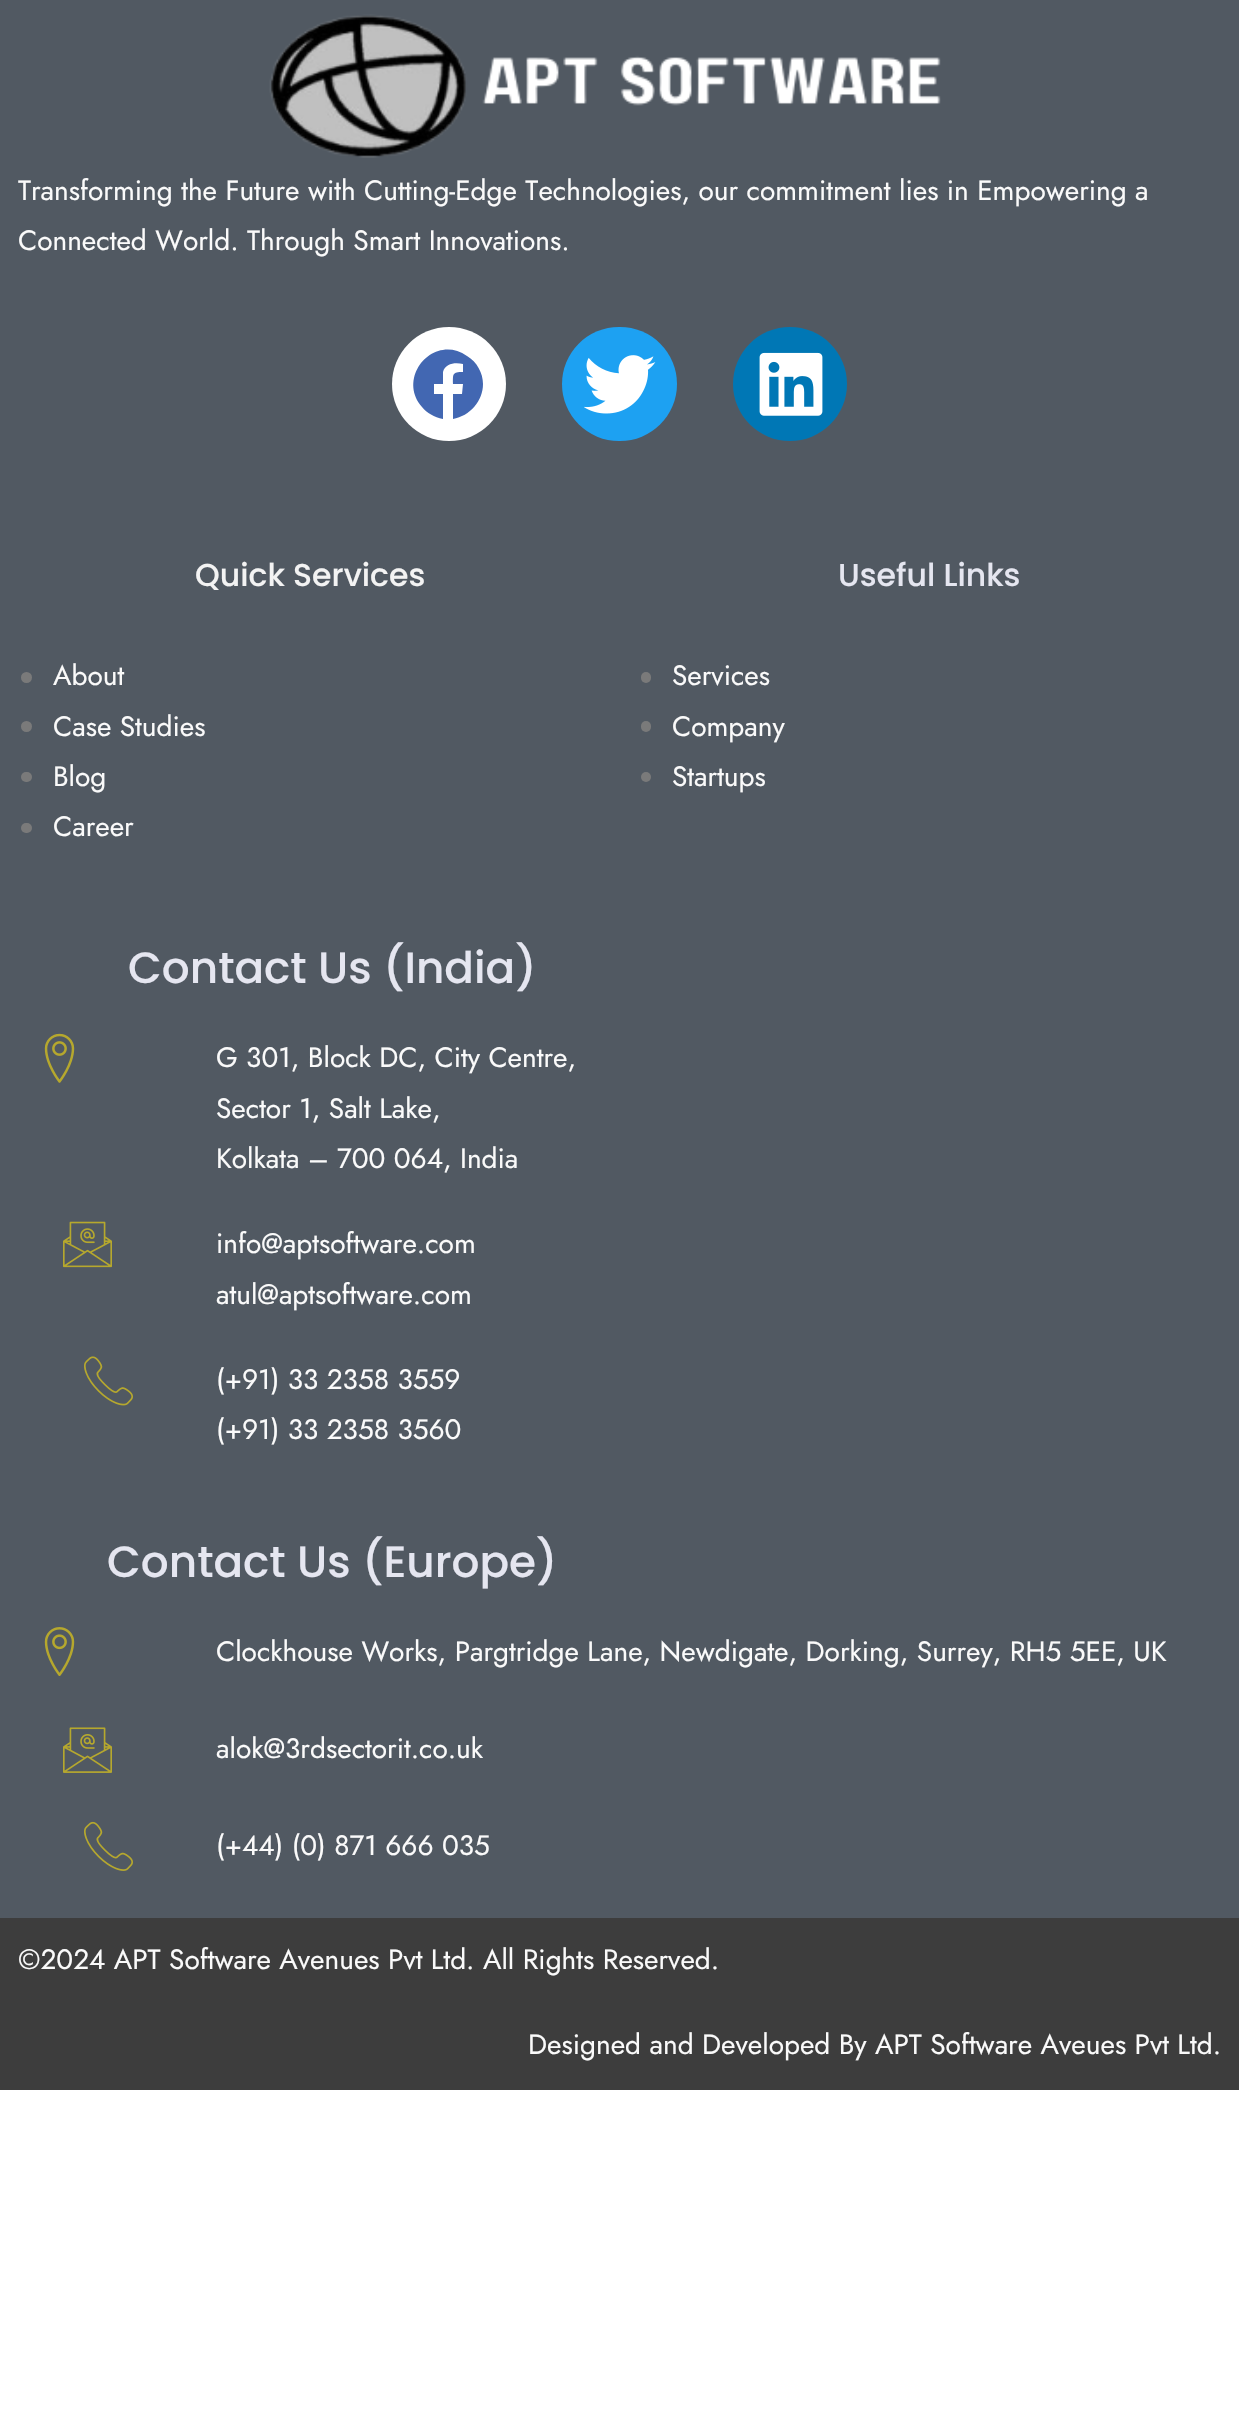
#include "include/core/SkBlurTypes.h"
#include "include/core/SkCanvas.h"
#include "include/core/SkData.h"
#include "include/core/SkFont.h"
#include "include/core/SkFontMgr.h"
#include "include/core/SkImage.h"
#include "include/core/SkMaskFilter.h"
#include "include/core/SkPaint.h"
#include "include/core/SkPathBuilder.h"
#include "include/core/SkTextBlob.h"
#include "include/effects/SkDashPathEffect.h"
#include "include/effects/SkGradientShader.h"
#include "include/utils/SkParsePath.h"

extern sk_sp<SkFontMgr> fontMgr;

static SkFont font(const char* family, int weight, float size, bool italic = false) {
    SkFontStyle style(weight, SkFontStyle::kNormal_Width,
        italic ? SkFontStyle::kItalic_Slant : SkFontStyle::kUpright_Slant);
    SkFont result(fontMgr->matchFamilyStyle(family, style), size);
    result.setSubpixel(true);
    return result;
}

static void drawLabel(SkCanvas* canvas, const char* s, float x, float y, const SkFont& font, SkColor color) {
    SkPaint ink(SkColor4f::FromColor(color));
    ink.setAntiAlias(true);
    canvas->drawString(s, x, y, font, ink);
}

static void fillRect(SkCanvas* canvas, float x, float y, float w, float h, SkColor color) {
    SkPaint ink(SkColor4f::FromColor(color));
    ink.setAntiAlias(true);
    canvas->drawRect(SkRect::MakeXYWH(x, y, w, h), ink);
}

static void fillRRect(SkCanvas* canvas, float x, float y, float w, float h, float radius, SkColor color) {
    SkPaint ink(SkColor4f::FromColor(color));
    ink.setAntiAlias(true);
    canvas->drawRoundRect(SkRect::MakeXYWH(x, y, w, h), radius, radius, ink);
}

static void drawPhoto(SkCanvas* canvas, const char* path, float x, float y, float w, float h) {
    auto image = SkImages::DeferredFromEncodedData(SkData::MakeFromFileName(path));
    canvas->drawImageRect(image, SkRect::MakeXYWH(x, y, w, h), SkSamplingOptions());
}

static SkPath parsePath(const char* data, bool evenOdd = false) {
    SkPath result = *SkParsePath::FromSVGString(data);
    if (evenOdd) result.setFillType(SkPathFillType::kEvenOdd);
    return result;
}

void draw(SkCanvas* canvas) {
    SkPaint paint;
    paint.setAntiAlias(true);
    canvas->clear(0xFFFFFFFF);
    fillRect(canvas, 0, 0, 1239, 1918, 0xFF515962);
    drawPhoto(canvas, "assets/img1.png", 269, 14, 672, 144);
    SkFont font1 = font("Jost", 400, 28);
    drawLabel(canvas, "Transforming the Future with Cutting-Edge Technologies, our commitment lies in Empowering a", 18, 200, font1, 0xFFFAFAFA);
    drawLabel(canvas, "Connected World. Through Smart Innovations.", 18, 250, font1, 0xFFFAFAFA);
    paint.setColor(0xFFFFFFFF);
    canvas->drawCircle(449, 384, 57, paint);
    paint.setColor(0xFF4267B2);
    canvas->drawPath(parsePath("M483 384C483 401 470 416 453 419V394H462L463 384H453C453 374 452 372 463 372V364C456 362 445 363 443 372V384H434V394H443V419C434 417 427 413 422 407C396 377 434 333 467 356C477 362 483 373 483 384Z"), paint);
    fillRRect(canvas, 562, 327, 115, 114, 57, 0xFF1DA1F2);
    drawPhoto(canvas, "assets/img2.png", 584, 355, 72, 59);
    paint.setColor(0xFF0077B5);
    canvas->drawCircle(790, 384, 57, paint);
    drawPhoto(canvas, "assets/img3.png", 759, 352, 64, 64);
    SkFont font2 = font("Poppins", 500, 31.5f);
    drawLabel(canvas, "Quick Services", 195, 586, font2, 0xFFF3F3F3);
    paint.setColor(0xFF7A7A7A);
    canvas->drawCircle(26.5f, 677.5f, 5.5f, paint);
    drawLabel(canvas, "About", 53, 685, font1, 0xFFFAFAFA);
    canvas->drawCircle(26.5f, 726.5f, 5.5f, paint);
    drawLabel(canvas, "Case Studies", 53, 736, font1, 0xFFFAFAFA);
    fillRRect(canvas, 21, 772, 11, 10, 5, 0xFF7A7A7A);
    drawLabel(canvas, "Blog", 53, 786, font1, 0xFFFAFAFA);
    fillRRect(canvas, 21, 823, 11, 10, 5, 0xFF7A7A7A);
    drawLabel(canvas, "Career", 53, 836, font1, 0xFFFAFAFA);
    drawLabel(canvas, "Useful Links", 838, 586, font2, 0xFFE5E6F0);
    fillRRect(canvas, 641, 672, 10, 11, 5, 0xFF7A7A7A);
    drawLabel(canvas, "Services", 672, 685, font1, 0xFFFAFAFA);
    fillRRect(canvas, 641, 721, 10, 11, 5, 0xFF7A7A7A);
    drawLabel(canvas, "Company", 672, 736, font1, 0xFFFAFAFA);
    canvas->drawCircle(646, 777, 5, paint);
    drawLabel(canvas, "Startups", 672, 786, font1, 0xFFFAFAFA);
    SkFont font3 = font("Poppins", 500, 43.75f);
    drawLabel(canvas, "Contact Us (India)", 128, 983, font3, 0xFFE5E6F0);
    drawPhoto(canvas, "assets/img4.png", 44, 1033, 31, 50);
    drawLabel(canvas, "G 301, Block DC, City Centre,", 216, 1067, font1, 0xFFFAFAFA);
    drawLabel(canvas, "Sector 1, Salt Lake,", 216, 1118, font1, 0xFFFAFAFA);
    drawLabel(canvas, "Kolkata – 700 064, India", 216, 1168, font1, 0xFFFAFAFA);
    drawPhoto(canvas, "assets/img5.png", 63, 1221, 49, 47);
    drawLabel(canvas, "info@aptsoftware.com", 216, 1253, font1, 0xFFFAFAFA);
    drawLabel(canvas, "atul@aptsoftware.com", 216, 1304, font1, 0xFFFAFAFA);
    drawPhoto(canvas, "assets/img6.png", 84, 1356, 49, 50);
    drawLabel(canvas, "(+91) 33 2358 3559", 216, 1389, font1, 0xFFFAFAFA);
    drawLabel(canvas, "(+91) 33 2358 3560", 216, 1439, font1, 0xFFFAFAFA);
    drawLabel(canvas, "Contact Us (Europe)", 107, 1577, font3, 0xFFE5E6F0);
    drawPhoto(canvas, "assets/img7.png", 44, 1627, 31, 49);
    drawLabel(canvas, "Clockhouse Works, Pargtridge Lane, Newdigate, Dorking, Surrey, RH5 5EE, UK", 216, 1661, font1, 0xFFFAFAFA);
    drawPhoto(canvas, "assets/img8.png", 63, 1727, 49, 46);
    drawLabel(canvas, "alok@3rdsectorit.co.uk", 216, 1758, font1, 0xFFFAFAFA);
    drawPhoto(canvas, "assets/img9.png", 84, 1821, 49, 50);
    drawLabel(canvas, "(+44) (0) 871 666 035", 216, 1855, font1, 0xFFFAFAFA);
    fillRect(canvas, 0, 1918, 1239, 172, 0xFF3D3D3D);
    drawLabel(canvas, "©2024 APT Software Avenues Pvt Ltd. All Rights Reserved.", 18, 1969, font1, 0xFFFAFAFA);
    drawLabel(canvas, "Designed and Developed By APT Software Aveues Pvt Ltd.", 528, 2054, font1, 0xFFFAFAFA);
}
